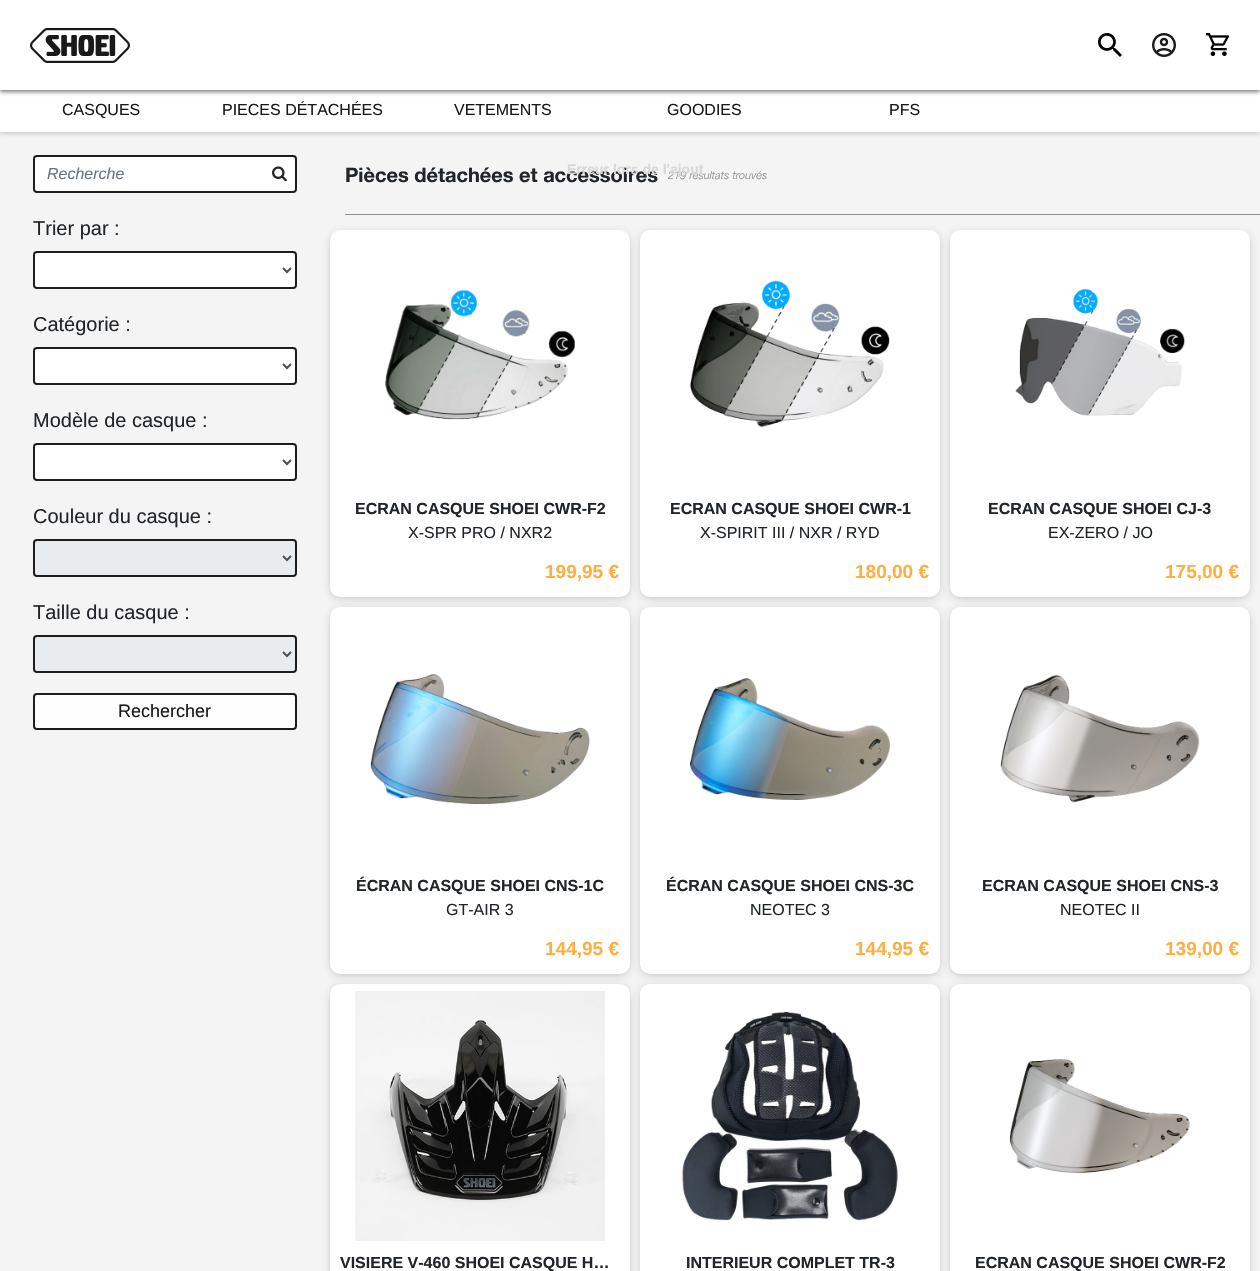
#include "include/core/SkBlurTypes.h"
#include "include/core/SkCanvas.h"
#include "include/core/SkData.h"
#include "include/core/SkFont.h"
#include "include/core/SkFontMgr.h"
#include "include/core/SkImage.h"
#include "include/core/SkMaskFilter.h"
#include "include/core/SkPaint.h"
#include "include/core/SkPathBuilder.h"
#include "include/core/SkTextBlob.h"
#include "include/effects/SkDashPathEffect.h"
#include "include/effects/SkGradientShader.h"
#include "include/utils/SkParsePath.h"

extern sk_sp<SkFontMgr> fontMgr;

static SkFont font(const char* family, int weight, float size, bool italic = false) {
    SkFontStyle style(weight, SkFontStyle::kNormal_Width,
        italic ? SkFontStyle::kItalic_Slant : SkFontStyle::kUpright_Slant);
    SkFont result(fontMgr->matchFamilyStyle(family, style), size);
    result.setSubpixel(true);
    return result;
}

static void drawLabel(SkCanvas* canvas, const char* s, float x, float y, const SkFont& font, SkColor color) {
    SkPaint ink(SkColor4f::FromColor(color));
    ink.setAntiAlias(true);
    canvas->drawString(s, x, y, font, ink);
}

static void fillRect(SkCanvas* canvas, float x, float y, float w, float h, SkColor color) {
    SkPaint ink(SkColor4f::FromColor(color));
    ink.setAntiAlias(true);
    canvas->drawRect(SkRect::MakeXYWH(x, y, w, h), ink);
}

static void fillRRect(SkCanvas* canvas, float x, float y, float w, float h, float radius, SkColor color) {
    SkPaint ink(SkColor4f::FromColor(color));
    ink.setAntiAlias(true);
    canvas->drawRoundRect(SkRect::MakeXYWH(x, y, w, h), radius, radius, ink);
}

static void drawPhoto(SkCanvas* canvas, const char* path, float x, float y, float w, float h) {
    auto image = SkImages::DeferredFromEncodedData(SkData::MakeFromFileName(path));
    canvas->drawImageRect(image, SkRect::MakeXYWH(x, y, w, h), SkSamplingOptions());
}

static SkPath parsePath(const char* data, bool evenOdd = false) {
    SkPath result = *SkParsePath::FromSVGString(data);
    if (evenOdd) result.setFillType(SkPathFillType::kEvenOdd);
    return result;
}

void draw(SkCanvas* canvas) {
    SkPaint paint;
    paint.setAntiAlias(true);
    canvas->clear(0xFFF4F4F4);
    paint.setColor(0x33000000);
    paint.setMaskFilter(SkMaskFilter::MakeBlur(kNormal_SkBlurStyle, 2.5f));
    canvas->drawRect(SkRect::MakeXYWH(0, 91, 1260, 42), paint);
    paint.setMaskFilter(nullptr);
    fillRect(canvas, 0, 90, 1260, 42, 0xFFFFFFFF);
    paint.setColor(0x80000000);
    paint.setMaskFilter(SkMaskFilter::MakeBlur(kNormal_SkBlurStyle, 2));
    canvas->drawRect(SkRect::MakeXYWH(0, 2, 1260, 90), paint);
    paint.setMaskFilter(nullptr);
    fillRect(canvas, 0, 0, 1260, 90, 0xFFFFFFFF);
    drawPhoto(canvas, "assets/img1.png", 30, 28, 100, 35);
    drawPhoto(canvas, "assets/img2.png", 1098, 33, 24, 24);
    drawPhoto(canvas, "assets/img3.png", 1152, 33, 24, 24);
    drawPhoto(canvas, "assets/img4.png", 1206, 33, 23, 23);
    SkFont font1 = font("Liberation Sans", 400, 16);
    drawLabel(canvas, "CASQUES", 62, 115, font1, 0xFF1A1919);
    drawLabel(canvas, "PIECES DÉTACHÉES", 222, 115, font1, 0xFF1A1919);
    drawLabel(canvas, "VETEMENTS", 454, 115, font1, 0xFF1A1919);
    drawLabel(canvas, "GOODIES", 667, 115, font1, 0xFF1A1919);
    drawLabel(canvas, "PFS", 889, 115, font1, 0xFF1A1919);
    paint.setColor(0xFFFFFFFF);
    canvas->drawRoundRect(SkRect::MakeXYWH(34, 156, 262, 36), 3, 3, paint);
    paint.setStroke(true);
    paint.setStrokeWidth(2);
    paint.setColor(0xFF1D1D1D);
    canvas->drawRoundRect(SkRect::MakeXYWH(34, 156, 262, 36), 3, 3, paint);
    SkFont font2 = font("Liberation Sans", 400, 16, true);
    drawLabel(canvas, "Recherche", 47, 179, font2, 0xFF6C757D);
    drawPhoto(canvas, "assets/img5.png", 272, 166, 15, 16);
    SkFont font3 = font("Liberation Sans", 400, 20);
    drawLabel(canvas, "Trier par :", 33, 235, font3, 0xFF212529);
    paint.setStroke(false);
    paint.setColor(0xFFFFFFFF);
    canvas->drawRoundRect(SkRect::MakeXYWH(34, 252, 262, 36), 3, 3, paint);
    paint.setStroke(true);
    paint.setColor(0xFF1D1D1D);
    canvas->drawRoundRect(SkRect::MakeXYWH(34, 252, 262, 36), 3, 3, paint);
    paint.setColor(0xFF495057);
    canvas->drawPath(parsePath("M283 268L287 272L291 268"), paint);
    drawLabel(canvas, "Catégorie :", 33, 331, font3, 0xFF212529);
    paint.setStroke(false);
    paint.setColor(0xFFFFFFFF);
    canvas->drawRoundRect(SkRect::MakeXYWH(34, 348, 262, 36), 3, 3, paint);
    paint.setStroke(true);
    paint.setColor(0xFF1D1D1D);
    canvas->drawRoundRect(SkRect::MakeXYWH(34, 348, 262, 36), 3, 3, paint);
    paint.setColor(0xFF495057);
    canvas->drawPath(parsePath("M283 364L287 368L291 364"), paint);
    drawLabel(canvas, "Modèle de casque :", 33, 427, font3, 0xFF212529);
    paint.setStroke(false);
    paint.setColor(0xFFFFFFFF);
    canvas->drawRoundRect(SkRect::MakeXYWH(34, 444, 262, 36), 3, 3, paint);
    paint.setStroke(true);
    paint.setColor(0xFF1D1D1D);
    canvas->drawRoundRect(SkRect::MakeXYWH(34, 444, 262, 36), 3, 3, paint);
    paint.setColor(0xFF495057);
    canvas->drawPath(parsePath("M283 460L287 464L291 460"), paint);
    drawLabel(canvas, "Couleur du casque :", 33, 523, font3, 0xFF212529);
    paint.setStroke(false);
    paint.setColor(0xFFE9ECEF);
    canvas->drawRoundRect(SkRect::MakeXYWH(34, 540, 262, 36), 3, 3, paint);
    paint.setStroke(true);
    paint.setColor(0xFF1D1D1D);
    canvas->drawRoundRect(SkRect::MakeXYWH(34, 540, 262, 36), 3, 3, paint);
    paint.setColor(0xFF495057);
    canvas->drawPath(parsePath("M283 556L287 560L291 556"), paint);
    drawLabel(canvas, "Taille du casque :", 33, 619, font3, 0xFF212529);
    paint.setStroke(false);
    paint.setColor(0xFFE9ECEF);
    canvas->drawRoundRect(SkRect::MakeXYWH(34, 636, 262, 36), 3, 3, paint);
    paint.setStroke(true);
    paint.setColor(0xFF1D1D1D);
    canvas->drawRoundRect(SkRect::MakeXYWH(34, 636, 262, 36), 3, 3, paint);
    paint.setColor(0xFF495057);
    canvas->drawPath(parsePath("M283 652L287 656L291 652"), paint);
    paint.setStroke(false);
    paint.setColor(0xFFFEFEFE);
    canvas->drawRoundRect(SkRect::MakeXYWH(34, 694, 262, 35), 3, 3, paint);
    paint.setStroke(true);
    paint.setColor(0xFF1D1D1D);
    canvas->drawRoundRect(SkRect::MakeXYWH(34, 694, 262, 35), 3, 3, paint);
    SkFont font4 = font("Liberation Sans", 400, 18);
    drawLabel(canvas, "Rechercher", 118, 717, font4, 0xFF1A1919);
    SkFont font5 = font("Helvetica Neue", 700, 20);
    drawLabel(canvas, "Pièces détachées et accessoires", 345, 182, font5, 0xFF212529);
    SkFont font6 = font("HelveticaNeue", 100, 11, true);
    drawLabel(canvas, "219 résultats trouvés", 668, 179, font6, 0xFF908E8E);
    SkFont font7 = font("Liberation Sans", 700, 14);
    drawLabel(canvas, "Erreur lors de l'ajout", 567, 174, font7, 0xFFD8D8D9);
    fillRect(canvas, 345, 214, 915, 1, 0xFF908E8E);
    paint.setStroke(false);
    paint.setColor(0x63535353);
    paint.setMaskFilter(SkMaskFilter::MakeBlur(kNormal_SkBlurStyle, 5));
    canvas->drawRoundRect(SkRect::MakeXYWH(332, 234, 296, 363), 8, 8, paint);
    paint.setMaskFilter(nullptr);
    fillRRect(canvas, 330, 230, 300, 367, 10, 0xFFFFFFFF);
    drawPhoto(canvas, "assets/img6.png", 385, 289, 190, 131);
    SkFont font8 = font("Liberation Sans", 700, 16);
    drawLabel(canvas, "ECRAN CASQUE SHOEI CWR-F2", 355, 514, font8, 0xFF212529);
    drawLabel(canvas, "X-SPR PRO / NXR2", 408, 538, font1, 0xFF212529);
    SkFont font9 = font("Liberation Sans", 700, 19);
    drawLabel(canvas, "199,95 €", 545, 578, font9, 0xFFFFAF41);
    paint.setMaskFilter(SkMaskFilter::MakeBlur(kNormal_SkBlurStyle, 5));
    canvas->drawRoundRect(SkRect::MakeXYWH(642, 234, 296, 363), 8, 8, paint);
    paint.setMaskFilter(nullptr);
    fillRRect(canvas, 640, 230, 300, 367, 10, 0xFFFFFFFF);
    drawPhoto(canvas, "assets/img7.png", 690, 280, 200, 148);
    drawLabel(canvas, "ECRAN CASQUE SHOEI CWR-1", 670, 514, font8, 0xFF212529);
    drawLabel(canvas, "X-SPIRIT III / NXR / RYD", 700, 538, font1, 0xFF212529);
    drawLabel(canvas, "180,00 €", 855, 578, font9, 0xFFFFAF41);
    paint.setMaskFilter(SkMaskFilter::MakeBlur(kNormal_SkBlurStyle, 5));
    canvas->drawRoundRect(SkRect::MakeXYWH(952, 234, 296, 363), 8, 8, paint);
    paint.setMaskFilter(nullptr);
    fillRRect(canvas, 950, 230, 300, 367, 10, 0xFFFFFFFF);
    drawPhoto(canvas, "assets/img8.png", 1015, 288, 170, 128);
    drawLabel(canvas, "ECRAN CASQUE SHOEI CJ-3", 988, 514, font8, 0xFF212529);
    drawLabel(canvas, "EX-ZERO / JO", 1048, 538, font1, 0xFF212529);
    drawLabel(canvas, "175,00 €", 1165, 578, font9, 0xFFFFAF41);
    paint.setMaskFilter(SkMaskFilter::MakeBlur(kNormal_SkBlurStyle, 5));
    canvas->drawRoundRect(SkRect::MakeXYWH(332, 611, 296, 363), 8, 8, paint);
    paint.setMaskFilter(nullptr);
    fillRRect(canvas, 330, 607, 300, 367, 10, 0xFFFFFFFF);
    drawPhoto(canvas, "assets/img9.png", 370, 674, 220, 130);
    drawLabel(canvas, "ÉCRAN CASQUE SHOEI CNS-1C", 356, 891, font8, 0xFF212529);
    drawLabel(canvas, "GT-AIR 3", 446, 915, font1, 0xFF212529);
    drawLabel(canvas, "144,95 €", 545, 955, font9, 0xFFFFAF41);
    paint.setMaskFilter(SkMaskFilter::MakeBlur(kNormal_SkBlurStyle, 5));
    canvas->drawRoundRect(SkRect::MakeXYWH(642, 611, 296, 363), 8, 8, paint);
    paint.setMaskFilter(nullptr);
    fillRRect(canvas, 640, 607, 300, 367, 10, 0xFFFFFFFF);
    drawPhoto(canvas, "assets/img10.png", 690, 678, 200, 122);
    drawLabel(canvas, "ÉCRAN CASQUE SHOEI CNS-3C", 666, 891, font8, 0xFF212529);
    drawLabel(canvas, "NEOTEC 3", 750, 915, font1, 0xFF212529);
    drawLabel(canvas, "144,95 €", 855, 955, font9, 0xFFFFAF41);
    paint.setMaskFilter(SkMaskFilter::MakeBlur(kNormal_SkBlurStyle, 5));
    canvas->drawRoundRect(SkRect::MakeXYWH(952, 611, 296, 363), 8, 8, paint);
    paint.setMaskFilter(nullptr);
    fillRRect(canvas, 950, 607, 300, 367, 10, 0xFFFFFFFF);
    drawPhoto(canvas, "assets/img11.png", 1000, 674, 200, 129);
    drawLabel(canvas, "ECRAN CASQUE SHOEI CNS-3", 982, 891, font8, 0xFF212529);
    drawLabel(canvas, "NEOTEC II", 1060, 915, font1, 0xFF212529);
    drawLabel(canvas, "139,00 €", 1165, 955, font9, 0xFFFFAF41);
    paint.setMaskFilter(SkMaskFilter::MakeBlur(kNormal_SkBlurStyle, 5));
    canvas->drawRoundRect(SkRect::MakeXYWH(332, 988, 296, 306), 8, 8, paint);
    paint.setMaskFilter(nullptr);
    fillRRect(canvas, 330, 984, 300, 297, 10, 0xFFFFFFFF);
    drawPhoto(canvas, "assets/img12.png", 355, 991, 250, 250);
    drawLabel(canvas, "VISIERE V-460 SHOEI CASQUE H…", 340, 1268, font8, 0xFF212529);
    paint.setMaskFilter(SkMaskFilter::MakeBlur(kNormal_SkBlurStyle, 5));
    canvas->drawRoundRect(SkRect::MakeXYWH(642, 988, 296, 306), 8, 8, paint);
    paint.setMaskFilter(nullptr);
    fillRRect(canvas, 640, 984, 300, 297, 10, 0xFFFFFFFF);
    drawPhoto(canvas, "assets/img13.png", 682, 1011, 216, 210);
    drawLabel(canvas, "INTERIEUR COMPLET TR-3", 686, 1268, font8, 0xFF212529);
    paint.setMaskFilter(SkMaskFilter::MakeBlur(kNormal_SkBlurStyle, 5));
    canvas->drawRoundRect(SkRect::MakeXYWH(952, 988, 296, 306), 8, 8, paint);
    paint.setMaskFilter(nullptr);
    fillRRect(canvas, 950, 984, 300, 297, 10, 0xFFFFFFFF);
    drawPhoto(canvas, "assets/img14.png", 1009, 1059, 181, 114);
    drawLabel(canvas, "ECRAN CASQUE SHOEI CWR-F2", 975, 1268, font8, 0xFF212529);
}
